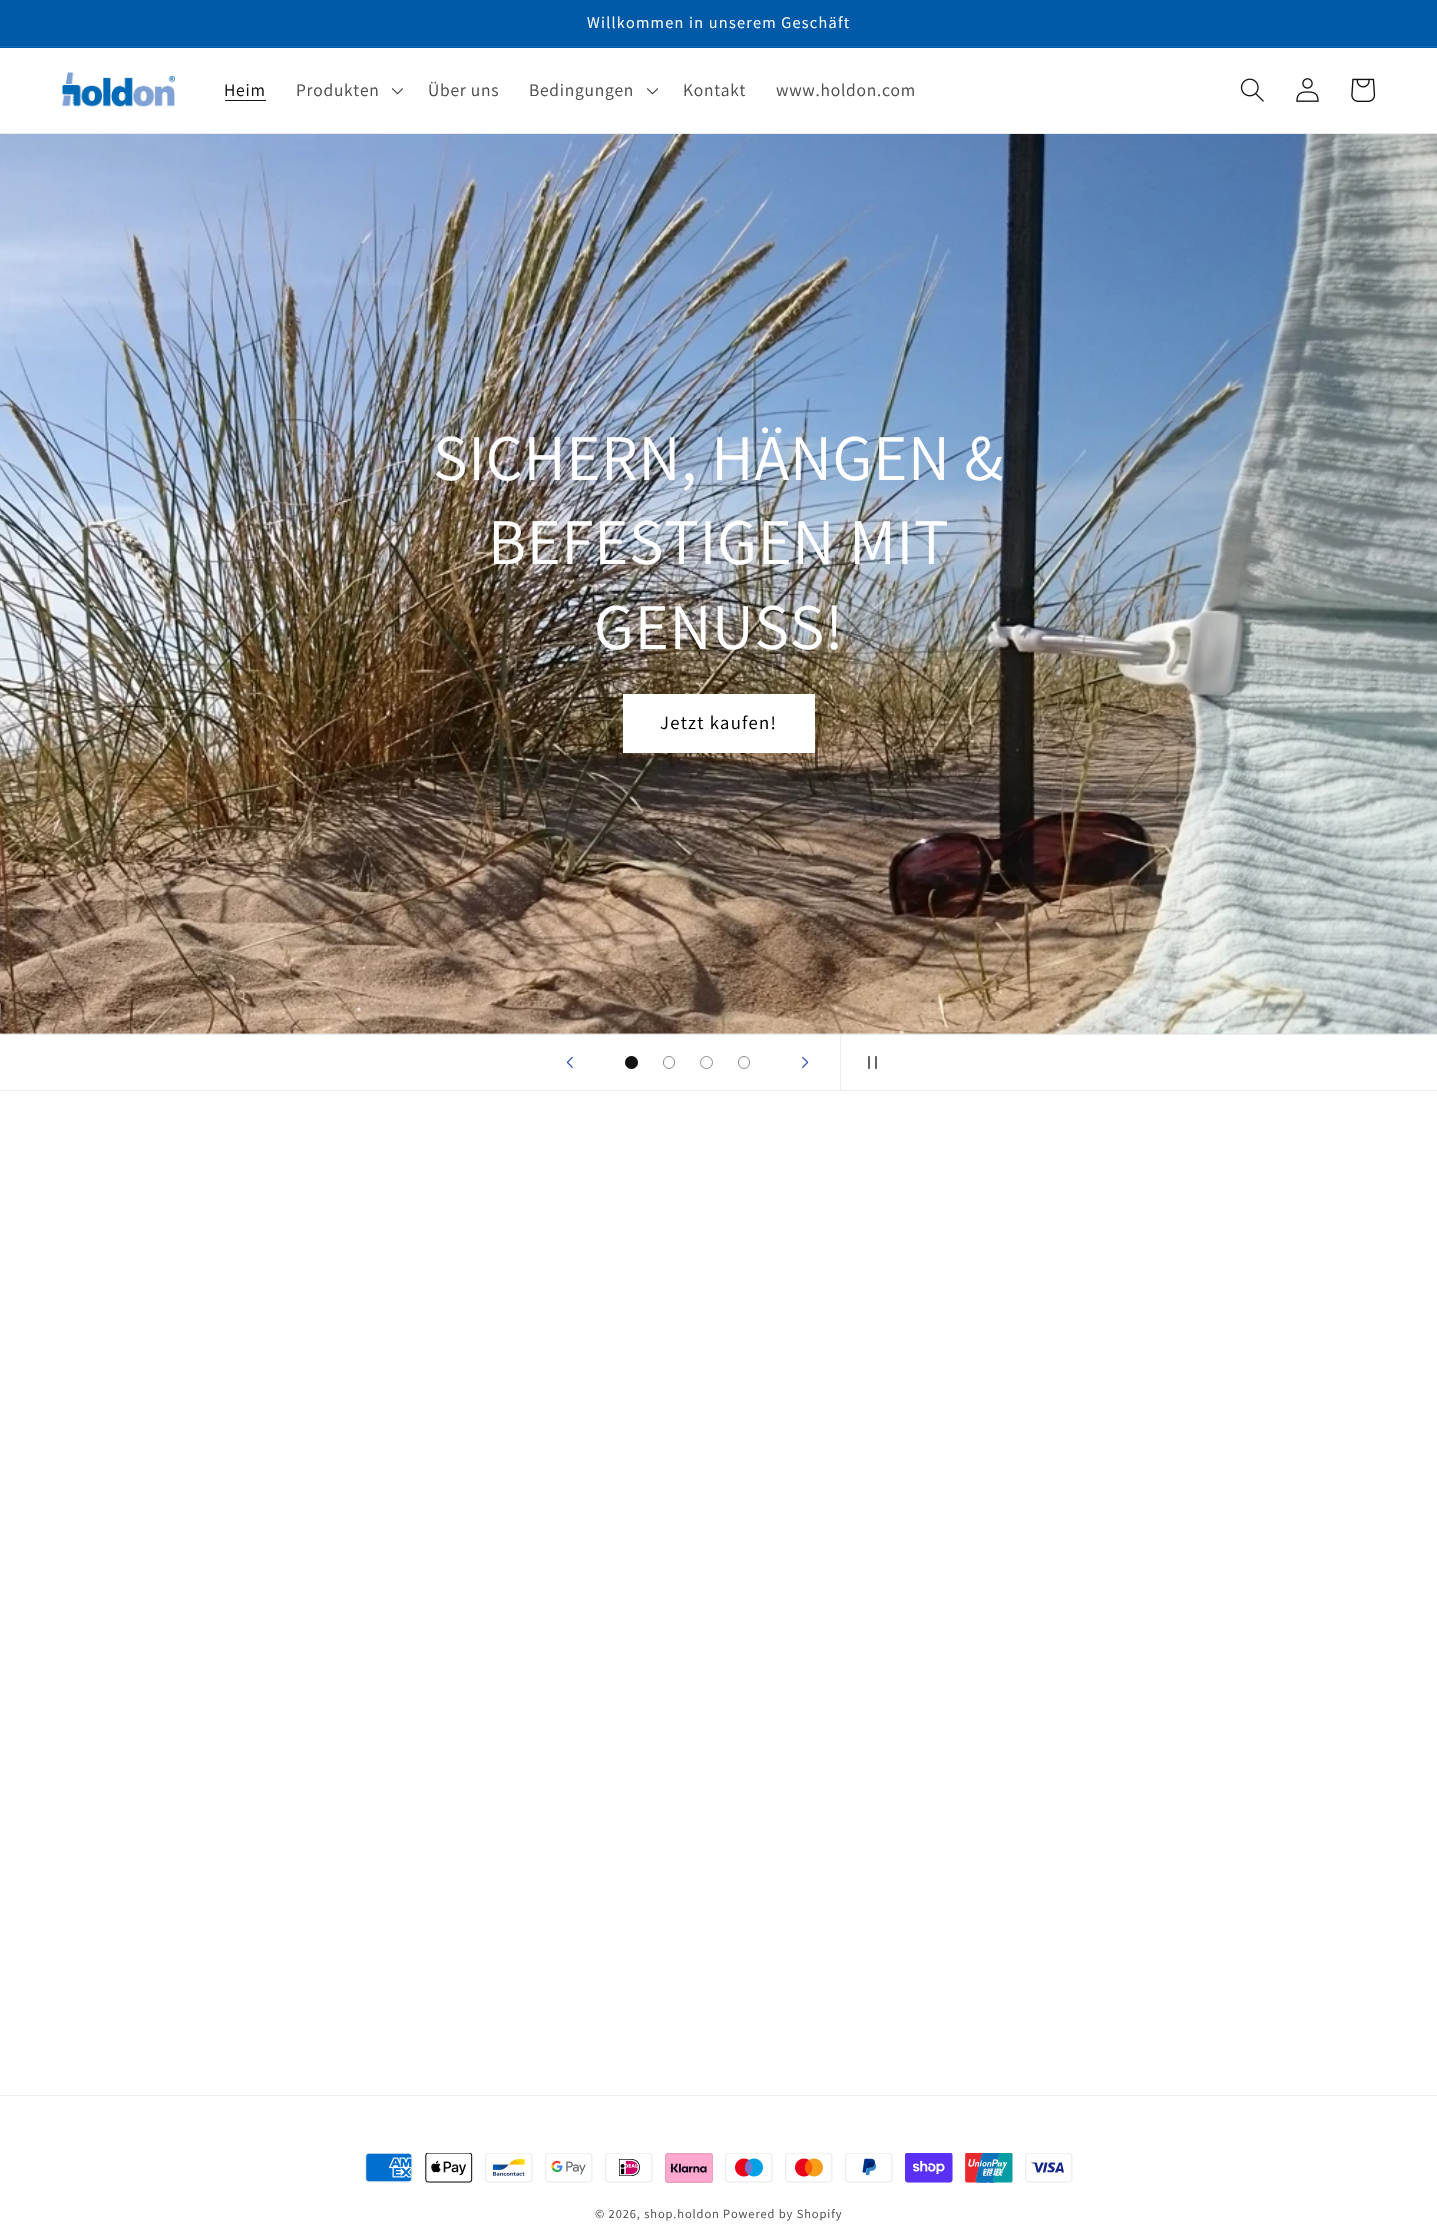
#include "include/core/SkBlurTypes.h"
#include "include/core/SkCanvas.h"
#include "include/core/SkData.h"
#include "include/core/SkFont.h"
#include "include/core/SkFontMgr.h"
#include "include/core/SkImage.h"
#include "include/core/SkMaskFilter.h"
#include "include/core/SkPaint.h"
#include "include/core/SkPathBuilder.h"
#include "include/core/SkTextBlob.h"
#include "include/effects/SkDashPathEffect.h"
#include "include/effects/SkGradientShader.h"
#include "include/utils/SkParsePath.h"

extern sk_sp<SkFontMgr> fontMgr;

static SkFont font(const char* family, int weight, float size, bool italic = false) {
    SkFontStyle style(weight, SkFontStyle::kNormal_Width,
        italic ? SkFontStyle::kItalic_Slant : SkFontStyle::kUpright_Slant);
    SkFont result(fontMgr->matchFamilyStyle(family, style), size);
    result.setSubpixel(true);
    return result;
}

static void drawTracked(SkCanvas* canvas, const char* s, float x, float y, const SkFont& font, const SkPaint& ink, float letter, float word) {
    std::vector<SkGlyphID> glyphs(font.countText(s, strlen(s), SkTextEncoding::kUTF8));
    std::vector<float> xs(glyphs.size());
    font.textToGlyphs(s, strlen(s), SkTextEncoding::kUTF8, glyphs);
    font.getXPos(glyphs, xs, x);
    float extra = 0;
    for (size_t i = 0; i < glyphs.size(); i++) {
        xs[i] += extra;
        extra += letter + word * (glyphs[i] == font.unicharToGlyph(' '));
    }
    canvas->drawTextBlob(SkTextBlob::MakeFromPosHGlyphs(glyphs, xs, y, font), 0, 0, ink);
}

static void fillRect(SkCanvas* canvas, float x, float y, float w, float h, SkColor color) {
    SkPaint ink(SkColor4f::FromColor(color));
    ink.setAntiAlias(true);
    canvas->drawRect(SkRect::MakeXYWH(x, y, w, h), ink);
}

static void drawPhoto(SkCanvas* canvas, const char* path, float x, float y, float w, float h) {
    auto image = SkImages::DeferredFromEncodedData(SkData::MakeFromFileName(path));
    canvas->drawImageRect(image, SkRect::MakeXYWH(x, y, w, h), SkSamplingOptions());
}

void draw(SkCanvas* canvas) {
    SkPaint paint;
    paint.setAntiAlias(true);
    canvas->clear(0xFFFFFFFF);
    fillRect(canvas, 0, 0, 1437, 48, 0xFF005AA8);
    fillRect(canvas, 0, 46, 1437, 1, 0xFF1467AF);
    SkFont font1 = font("Assistant", 400, 16.25f);
    paint.setColor(0xFFFFFFFF);
    drawTracked(canvas, "Willkommen in unserem Geschäft", 587, 28, font1, paint, 1.25f, 0);
    fillRect(canvas, 0, 133, 1437, 1, 0xFFECECEC);
    drawPhoto(canvas, "assets/img1.png", 62, 72, 113, 35);
    SkFont font2 = font("Assistant", 400, 17.5f);
    paint.setColor(0xFF121212);
    drawTracked(canvas, "Heim", 224, 96, font2, paint, 0.75f, 0);
    fillRect(canvas, 225, 100, 41, 1, 0xFF121212);
    paint.setColor(0xFF4D4D4D);
    drawTracked(canvas, "Produkten", 296, 96, font2, paint, 0.75f, 0);
    drawPhoto(canvas, "assets/img2.png", 391, 88, 13, 7);
    drawTracked(canvas, "Über uns", 428, 96, font2, paint, 0.75f, 0);
    drawTracked(canvas, "Bedingungen", 529, 96, font2, paint, 0.75f, 0);
    drawPhoto(canvas, "assets/img2.png", 646, 88, 13, 7);
    drawTracked(canvas, "Kontakt", 683, 96, font2, paint, 0.75f, 0);
    drawTracked(canvas, "www.holdon.com", 776, 96, font2, paint, 0.75f, 0);
    drawPhoto(canvas, "assets/img3.png", 1240, 78, 24, 24);
    drawPhoto(canvas, "assets/img4.png", 1296, 78, 23, 24);
    drawPhoto(canvas, "assets/img5.png", 1351, 78, 25, 24);
    fillRect(canvas, 0, 1033, 1437, 1, 0xFFE8E8E8);
    drawPhoto(canvas, "assets/img6.png", 0, 134, 1437, 900);
    SkFont font3 = font("Assistant", 400, 65);
    paint.setColor(0xFFFFFFFF);
    drawTracked(canvas, "SICHERN, HÄNGEN &", 433, 480, font3, paint, 0.75f, 0);
    drawTracked(canvas, "BEFESTIGEN MIT", 488, 564, font3, paint, 0.75f, 0);
    drawTracked(canvas, "GENUSS!", 594, 649, font3, paint, 0.75f, 0);
    fillRect(canvas, 623, 694, 192, 59, 0xFFFFFFFF);
    SkFont font4 = font("Assistant", 400, 18.75f);
    paint.setColor(0xFF000000);
    drawTracked(canvas, "Jetzt kaufen!", 660, 729, font4, paint, 1.25f, 0);
    fillRect(canvas, 0, 1034, 1437, 1, 0xFFECECEC);
    fillRect(canvas, 0, 1090, 1437, 1, 0xFFECECEC);
    drawPhoto(canvas, "assets/img7.png", 566, 1056, 7, 12);
    paint.setColor(0xFF121212);
    canvas->drawCircle(631.5f, 1062.5f, 6.5f, paint);
    paint.setStroke(true);
    paint.setStrokeWidth(1);
    paint.setColor(0x80121212);
    canvas->drawCircle(631.5f, 1062.5f, 6, paint);
    paint.setColor(0xFF898989);
    canvas->drawRoundRect(SkRect::MakeXYWH(663.5f, 1056.5f, 11, 12), 5.5f, 5.5f, paint);
    canvas->drawCircle(706.5f, 1062.5f, 6, paint);
    canvas->drawRoundRect(SkRect::MakeXYWH(738.5f, 1056.5f, 11, 12), 5.5f, 5.5f, paint);
    drawPhoto(canvas, "assets/img8.png", 802, 1056, 7, 12);
    fillRect(canvas, 840, 1035, 1, 55, 0xFFECECEC);
    drawPhoto(canvas, "assets/img9.png", 868, 1056, 9, 13);
    fillRect(canvas, 0, 2095, 1437, 1, 0xFFECECEC);
    drawPhoto(canvas, "assets/img10.png", 365, 2153, 48, 30);
    drawPhoto(canvas, "assets/img11.png", 425, 2153, 48, 30);
    drawPhoto(canvas, "assets/img12.png", 485, 2153, 48, 30);
    drawPhoto(canvas, "assets/img13.png", 545, 2153, 48, 30);
    drawPhoto(canvas, "assets/img14.png", 605, 2153, 48, 30);
    drawPhoto(canvas, "assets/img15.png", 665, 2153, 48, 30);
    drawPhoto(canvas, "assets/img16.png", 725, 2153, 48, 30);
    drawPhoto(canvas, "assets/img17.png", 785, 2153, 48, 30);
    drawPhoto(canvas, "assets/img18.png", 845, 2153, 48, 30);
    drawPhoto(canvas, "assets/img19.png", 905, 2153, 48, 30);
    drawPhoto(canvas, "assets/img20.png", 965, 2153, 48, 30);
    drawPhoto(canvas, "assets/img21.png", 1025, 2153, 48, 30);
    SkFont font5 = font("Assistant", 400, 12.5f);
    paint.setStroke(false);
    paint.setColor(0xFF4D4D4D);
    drawTracked(canvas, "© 2026, shop.holdon", 595, 2218, font5, paint, 0.9f, 0);
    drawTracked(canvas, "Powered by Shopify", 723, 2218, font5, paint, 0.9f, 0);
}
